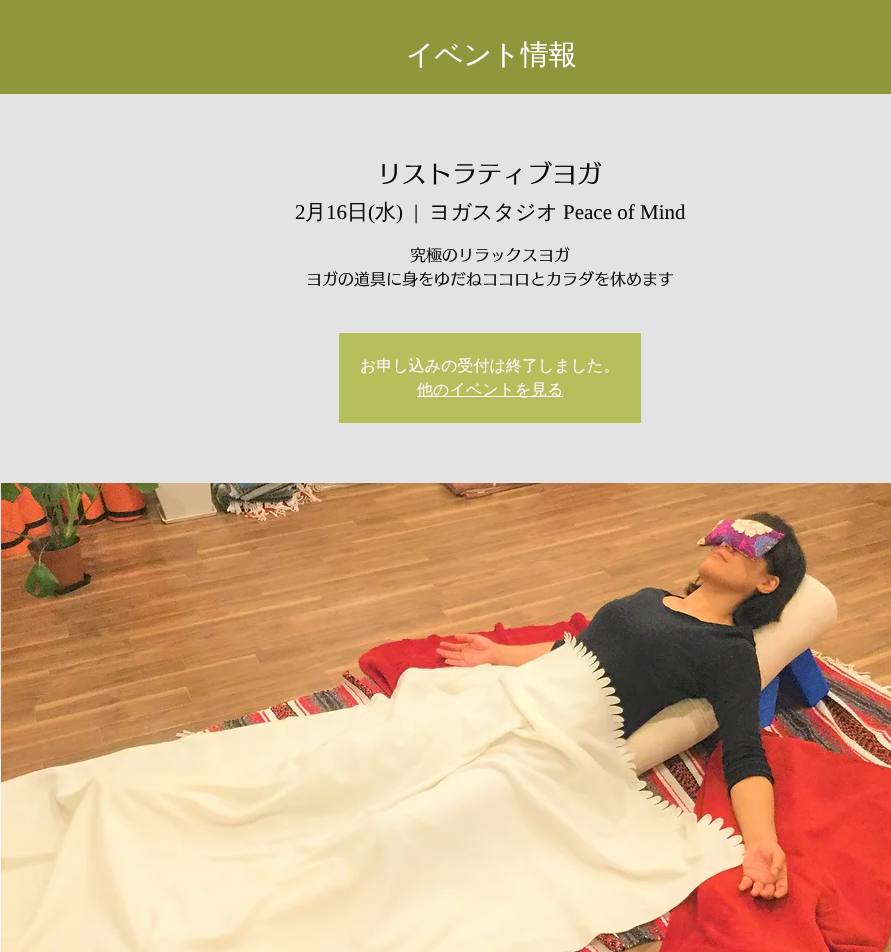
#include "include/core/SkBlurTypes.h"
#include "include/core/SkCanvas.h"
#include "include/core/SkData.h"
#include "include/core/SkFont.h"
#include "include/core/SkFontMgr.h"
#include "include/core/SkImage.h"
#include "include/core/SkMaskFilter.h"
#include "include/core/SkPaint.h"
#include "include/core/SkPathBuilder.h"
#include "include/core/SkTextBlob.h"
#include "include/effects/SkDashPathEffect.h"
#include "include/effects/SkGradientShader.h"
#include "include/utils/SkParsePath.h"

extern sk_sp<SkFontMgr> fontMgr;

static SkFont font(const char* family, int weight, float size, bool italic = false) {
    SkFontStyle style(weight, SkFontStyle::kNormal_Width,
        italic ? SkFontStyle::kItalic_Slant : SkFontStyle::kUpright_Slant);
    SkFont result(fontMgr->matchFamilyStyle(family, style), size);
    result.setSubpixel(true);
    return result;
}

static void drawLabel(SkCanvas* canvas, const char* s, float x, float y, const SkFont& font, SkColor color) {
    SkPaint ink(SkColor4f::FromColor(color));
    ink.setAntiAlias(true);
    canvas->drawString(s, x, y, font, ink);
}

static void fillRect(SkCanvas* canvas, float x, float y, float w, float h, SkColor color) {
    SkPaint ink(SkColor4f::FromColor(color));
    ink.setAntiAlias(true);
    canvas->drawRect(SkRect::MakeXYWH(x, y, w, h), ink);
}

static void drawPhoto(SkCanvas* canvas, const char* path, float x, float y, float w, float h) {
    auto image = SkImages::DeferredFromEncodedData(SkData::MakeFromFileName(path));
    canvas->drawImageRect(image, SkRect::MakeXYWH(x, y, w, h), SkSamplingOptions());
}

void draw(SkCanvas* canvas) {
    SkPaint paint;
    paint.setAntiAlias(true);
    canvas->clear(0xFF8D973B);
    SkFont font1 = font("WenQuanYi Zen Hei", 500, 28);
    drawLabel(canvas, "イベント情報", 406, 64, font1, 0xFFFFFFFF);
    fillRect(canvas, 0, 94, 891, 665, 0xFFE3E3E3);
    SkFont font2 = font("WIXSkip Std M", 500, 25);
    drawLabel(canvas, "リストラティブヨガ", 377, 183, font2, 0xFF0D0D0D);
    SkFont font3 = font("Liberation Serif", 400, 21);
    drawLabel(canvas, "2", 295, 219, font3, 0xFF0D0D0D);
    SkFont font4 = font("WenQuanYi Zen Hei", 500, 21);
    drawLabel(canvas, "月", 305, 219, font4, 0xFF0D0D0D);
    drawLabel(canvas, "16", 326, 219, font3, 0xFF0D0D0D);
    drawLabel(canvas, "日", 347, 219, font4, 0xFF0D0D0D);
    drawLabel(canvas, "(", 368, 219, font3, 0xFF0D0D0D);
    drawLabel(canvas, "水", 375, 219, font4, 0xFF0D0D0D);
    drawLabel(canvas, ")", 396, 219, font3, 0xFF0D0D0D);
    drawLabel(canvas, "|", 414, 219, font3, 0xFF0D0D0D);
    drawLabel(canvas, "ヨガスタジオ", 429, 219, font4, 0xFF0D0D0D);
    drawLabel(canvas, "Peace of Mind", 563, 219, font3, 0xFF0D0D0D);
    SkFont font5 = font("WIXSkip Std M", 500, 16);
    drawLabel(canvas, "究極のリラックスヨガ", 410, 261, font5, 0xFF0D0D0D);
    drawLabel(canvas, "ヨガの道具に身をゆだねココロとカラダを休めます", 306, 285, font5, 0xFF0D0D0D);
    fillRect(canvas, 339, 333, 302, 90, 0xFFB5BF5C);
    SkFont font6 = font("WenQuanYi Zen Hei", 500, 16);
    drawLabel(canvas, "お申し込みの受付は終了しました。", 360, 371, font6, 0xFFF7F7F7);
    fillRect(canvas, 417, 396, 146, 1, 0xFFF7F7F7);
    drawLabel(canvas, "他のイベントを見る", 417, 395, font6, 0xFFF7F7F7);
    drawPhoto(canvas, "assets/img1.png", 1, 483, 890, 469);
    fillRect(canvas, 0, 759, 1, 193, 0xFFF7F7F7);
}
